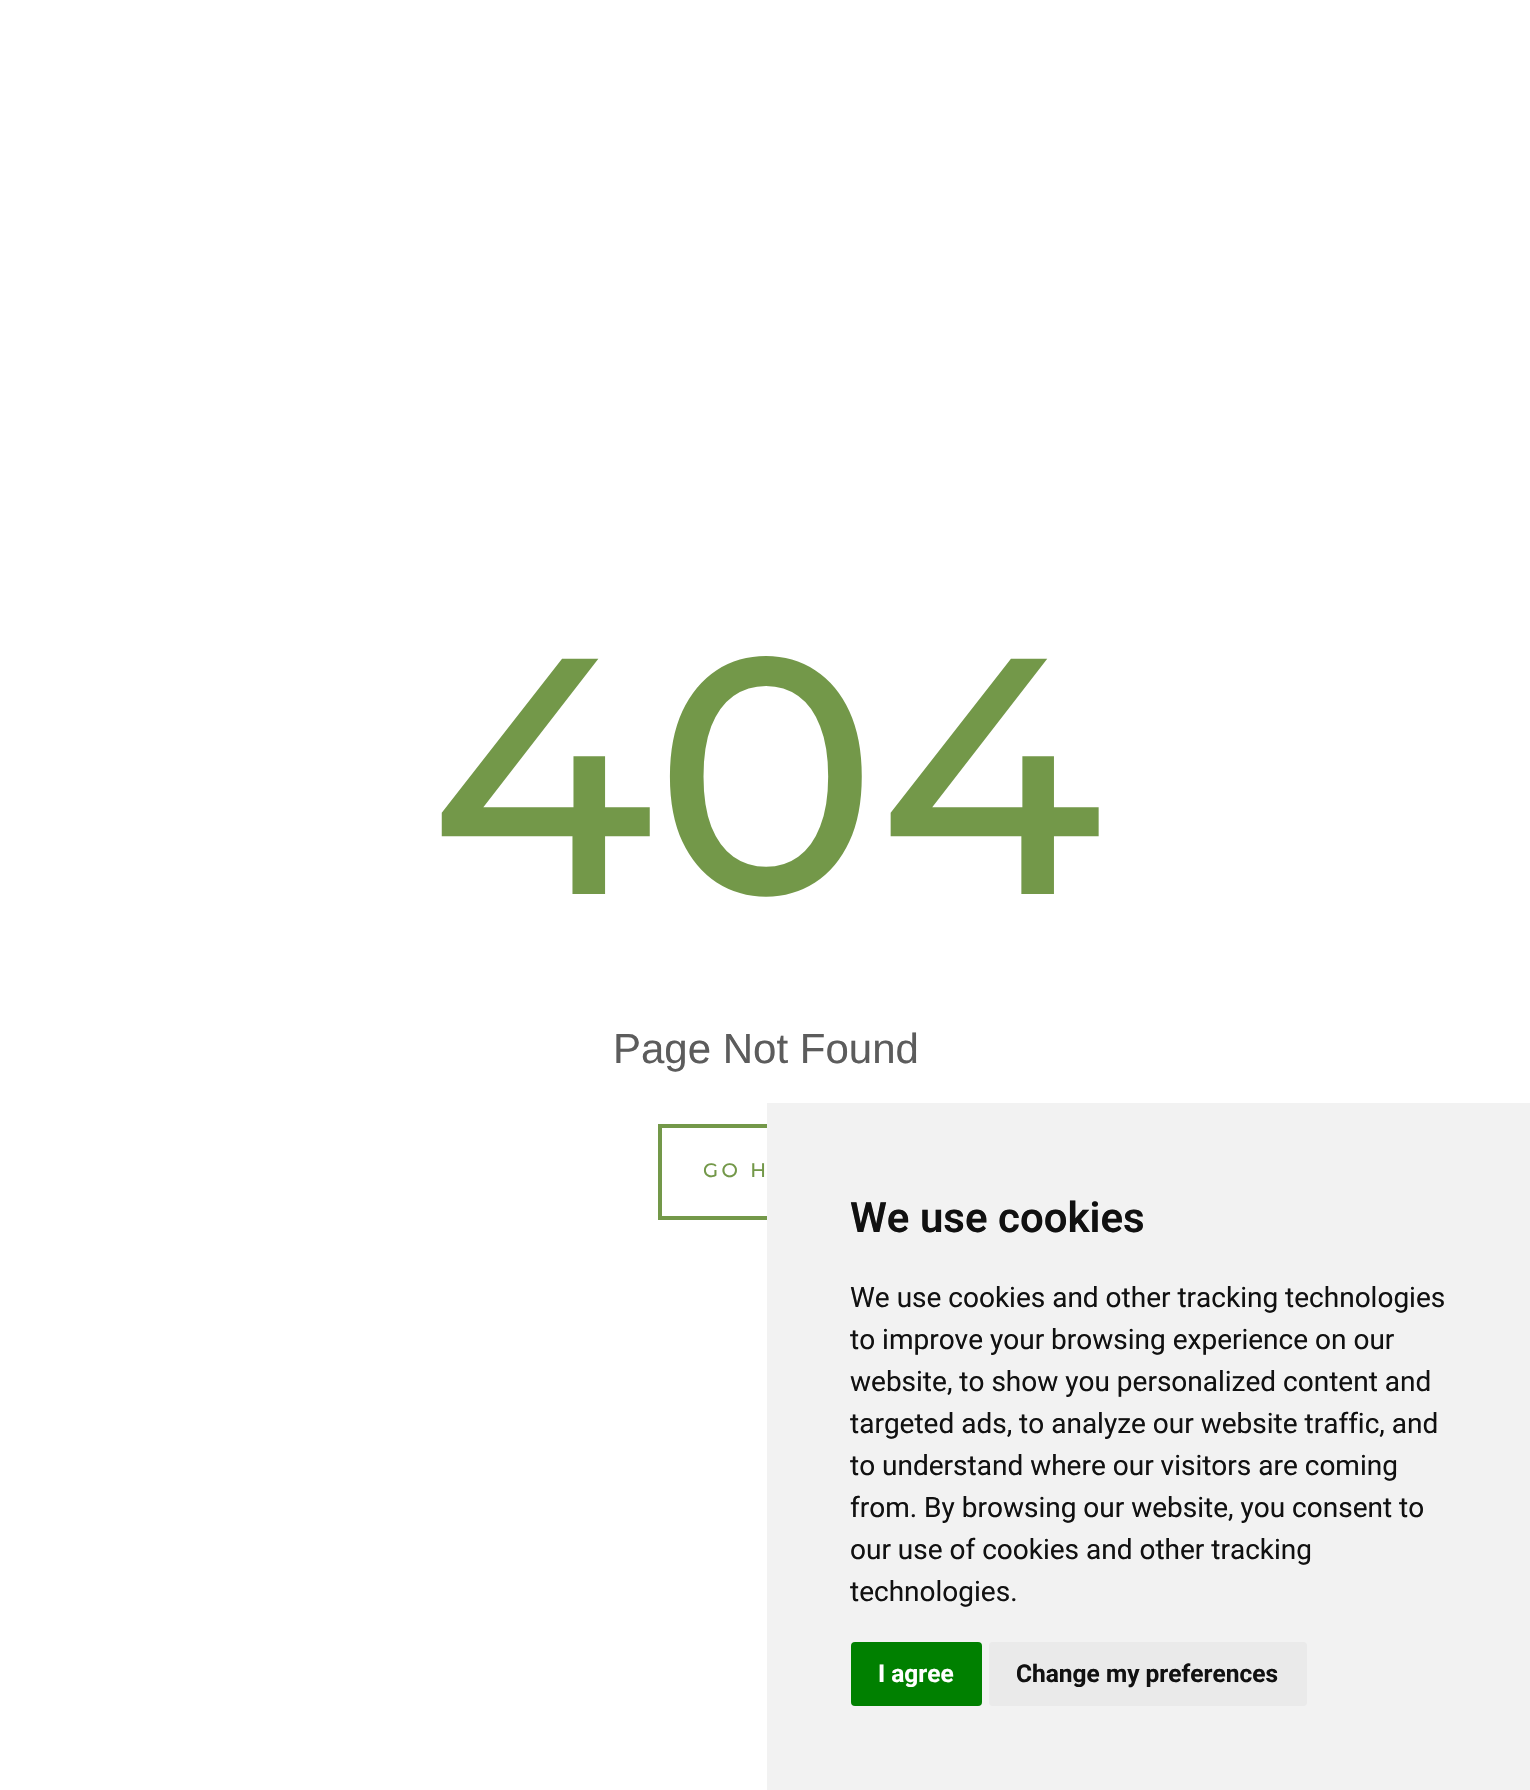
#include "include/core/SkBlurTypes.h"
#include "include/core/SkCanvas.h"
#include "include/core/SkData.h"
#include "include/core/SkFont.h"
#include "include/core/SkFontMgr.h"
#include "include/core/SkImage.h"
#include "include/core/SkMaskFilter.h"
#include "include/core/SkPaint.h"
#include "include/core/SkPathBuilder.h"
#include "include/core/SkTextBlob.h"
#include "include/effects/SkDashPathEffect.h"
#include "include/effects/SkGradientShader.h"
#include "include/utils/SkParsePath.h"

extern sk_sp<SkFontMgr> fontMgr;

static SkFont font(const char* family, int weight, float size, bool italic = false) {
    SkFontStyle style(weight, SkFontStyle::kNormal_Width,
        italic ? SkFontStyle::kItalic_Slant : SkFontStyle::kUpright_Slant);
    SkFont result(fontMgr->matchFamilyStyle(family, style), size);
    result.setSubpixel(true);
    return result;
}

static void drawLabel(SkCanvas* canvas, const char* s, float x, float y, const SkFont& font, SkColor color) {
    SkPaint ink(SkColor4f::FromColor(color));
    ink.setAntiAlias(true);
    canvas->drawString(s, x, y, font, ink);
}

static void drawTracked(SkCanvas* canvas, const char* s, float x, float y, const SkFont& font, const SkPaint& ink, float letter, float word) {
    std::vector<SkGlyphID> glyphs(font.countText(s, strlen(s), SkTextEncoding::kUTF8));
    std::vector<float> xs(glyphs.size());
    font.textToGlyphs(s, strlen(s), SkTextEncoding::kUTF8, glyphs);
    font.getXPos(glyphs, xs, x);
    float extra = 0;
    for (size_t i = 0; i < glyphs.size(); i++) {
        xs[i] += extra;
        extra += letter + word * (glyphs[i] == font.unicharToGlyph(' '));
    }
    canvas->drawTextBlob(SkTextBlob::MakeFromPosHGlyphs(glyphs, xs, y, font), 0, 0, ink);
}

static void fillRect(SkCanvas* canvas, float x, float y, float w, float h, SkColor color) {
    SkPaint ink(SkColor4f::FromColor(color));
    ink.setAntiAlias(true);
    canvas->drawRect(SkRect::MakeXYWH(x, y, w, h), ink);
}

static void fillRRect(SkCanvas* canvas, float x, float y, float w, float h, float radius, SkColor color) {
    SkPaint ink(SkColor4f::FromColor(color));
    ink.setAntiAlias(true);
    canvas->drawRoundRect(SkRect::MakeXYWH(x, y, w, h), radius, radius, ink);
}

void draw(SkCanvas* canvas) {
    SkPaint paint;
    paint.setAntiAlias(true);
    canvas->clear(0xFFFFFFFF);
    SkFont font1 = font("Montserrat", 100, 336);
    drawLabel(canvas, "404", 429, 894, font1, 0xFF739849);
    SkFont font2 = font("Liberation Sans", 400, 42);
    drawLabel(canvas, "Page Not Found", 613, 1063, font2, 0xFF5C5C5C);
    paint.setStroke(true);
    paint.setStrokeWidth(4);
    paint.setColor(0xFF739849);
    canvas->drawRect(SkRect::MakeXYWH(660, 1126, 211, 92), paint);
    SkFont font3 = font("Montserrat", 100, 19.5f);
    paint.setStroke(false);
    drawTracked(canvas, "GO H", 703, 1177, font3, paint, 3.5f, 0);
    fillRect(canvas, 767, 1103, 763, 687, 0xFFF2F2F2);
    SkFont font4 = font("Roboto", 600, 42);
    drawLabel(canvas, "We use cookies", 850, 1232, font4, 0xFF111111);
    SkFont font5 = font("Roboto", 400, 28);
    drawLabel(canvas, "We use cookies and other tracking technologies", 850, 1307, font5, 0xFF111111);
    drawLabel(canvas, "to improve your browsing experience on our", 850, 1349, font5, 0xFF111111);
    drawLabel(canvas, "website, to show you personalized content and", 850, 1391, font5, 0xFF111111);
    drawLabel(canvas, "targeted ads, to analyze our website traffic, and", 850, 1433, font5, 0xFF111111);
    drawLabel(canvas, "to understand where our visitors are coming", 850, 1475, font5, 0xFF111111);
    drawLabel(canvas, "from. By browsing our website, you consent to", 850, 1517, font5, 0xFF111111);
    drawLabel(canvas, "our use of cookies and other tracking", 850, 1559, font5, 0xFF111111);
    drawLabel(canvas, "technologies.", 850, 1601, font5, 0xFF111111);
    fillRRect(canvas, 851, 1642, 131, 64, 4, 0xFF008000);
    SkFont font6 = font("Roboto", 700, 24.5f);
    drawLabel(canvas, "I agree", 878, 1682, font6, 0xFFFFFFFF);
    fillRRect(canvas, 989, 1642, 318, 64, 4, 0xFFEAEAEA);
    drawLabel(canvas, "Change my preferences", 1016, 1682, font6, 0xFF111111);
}
